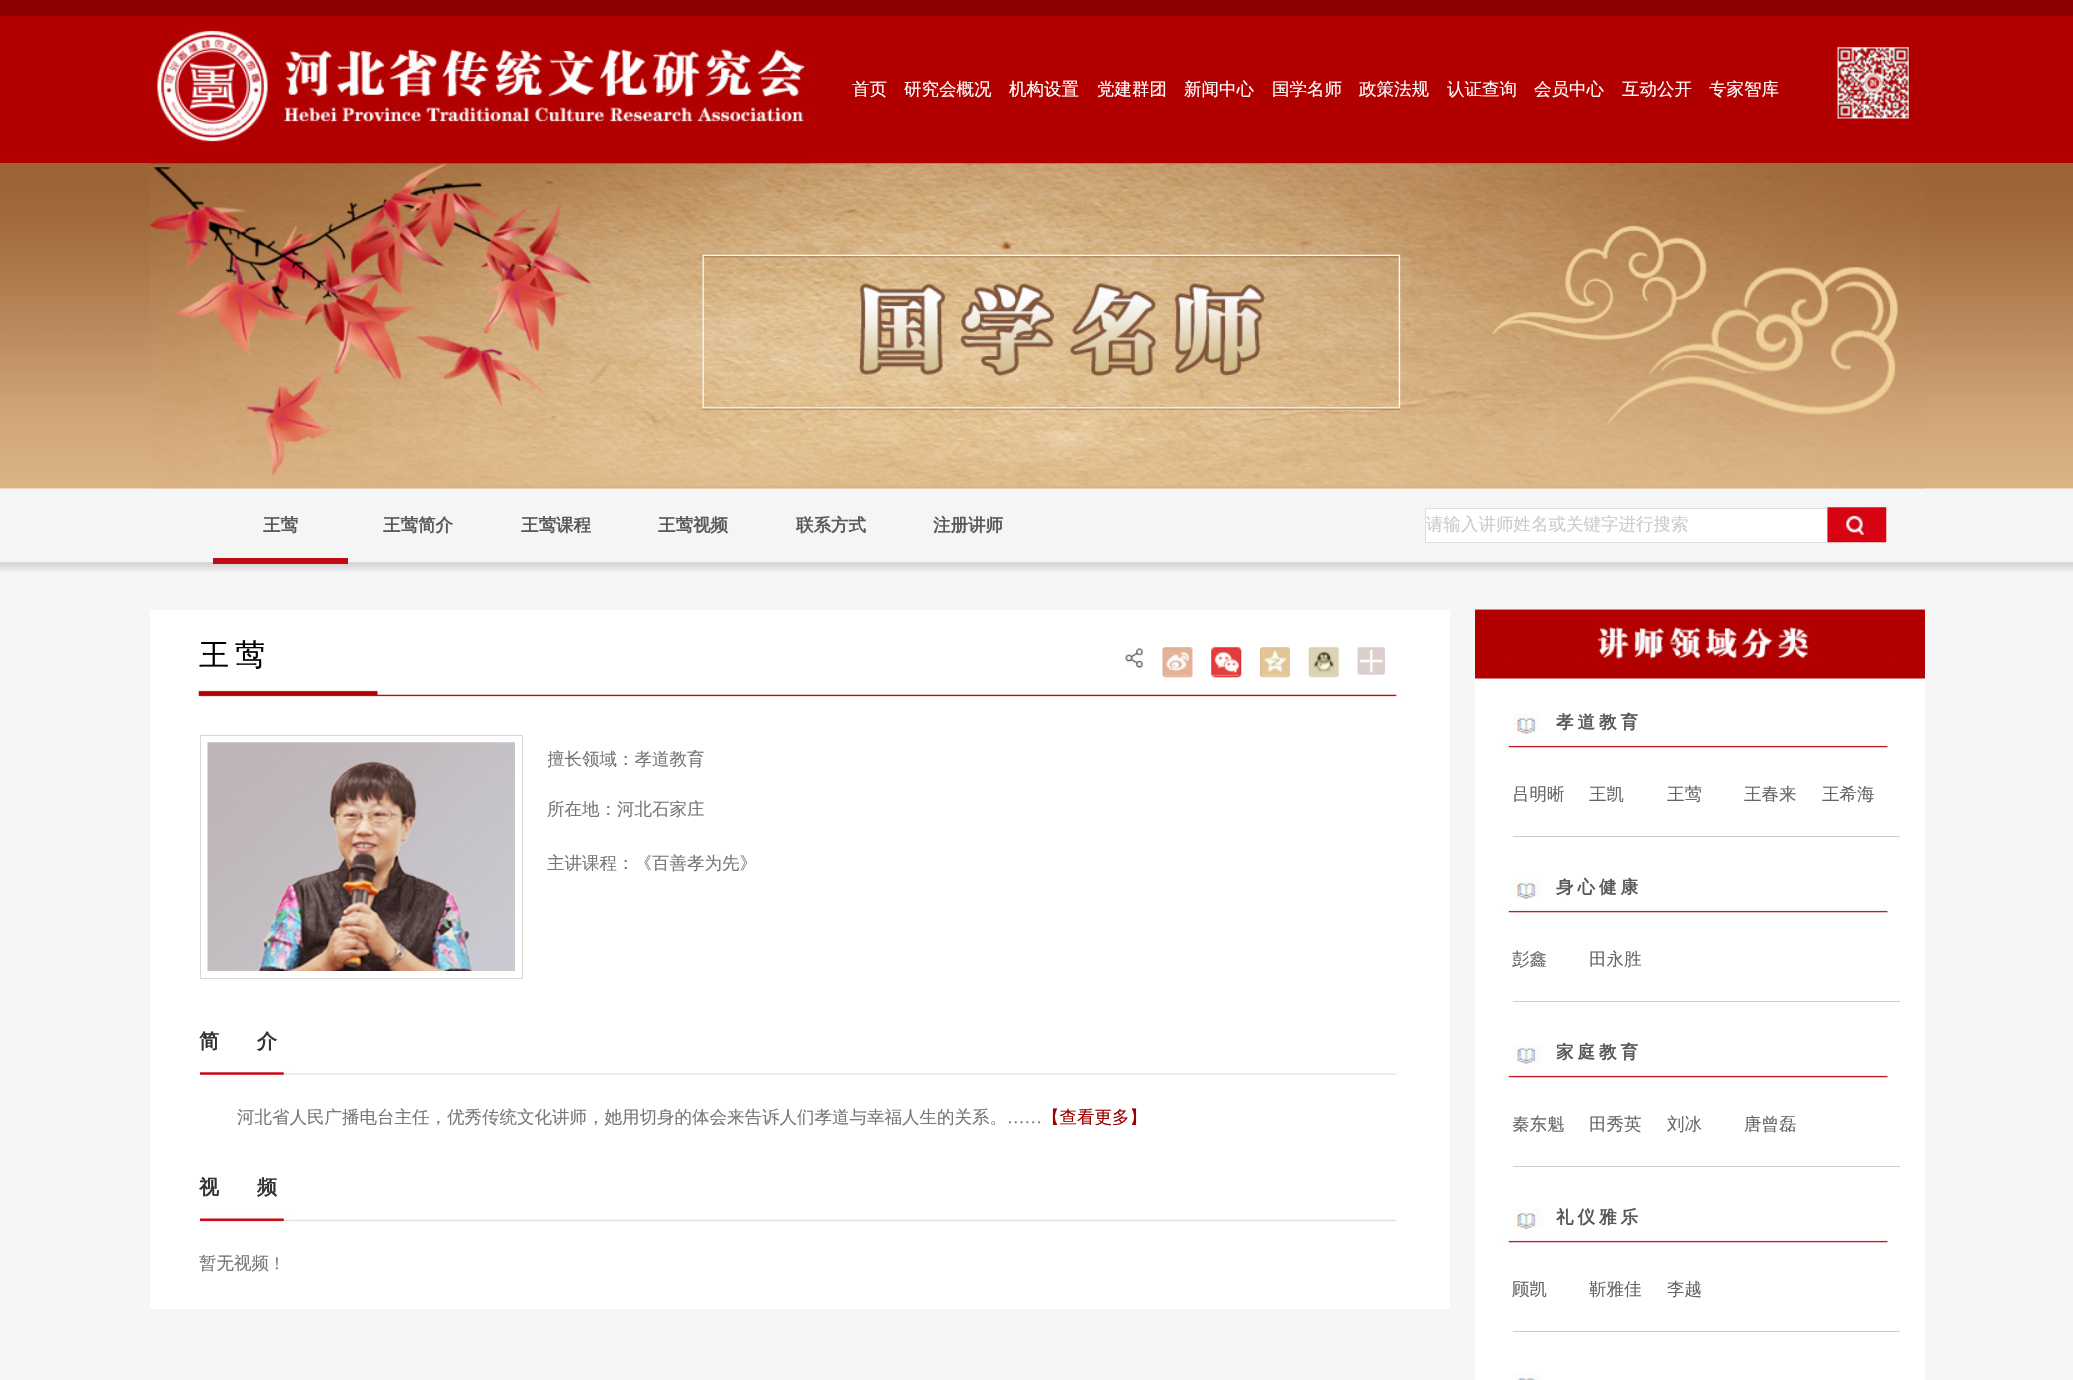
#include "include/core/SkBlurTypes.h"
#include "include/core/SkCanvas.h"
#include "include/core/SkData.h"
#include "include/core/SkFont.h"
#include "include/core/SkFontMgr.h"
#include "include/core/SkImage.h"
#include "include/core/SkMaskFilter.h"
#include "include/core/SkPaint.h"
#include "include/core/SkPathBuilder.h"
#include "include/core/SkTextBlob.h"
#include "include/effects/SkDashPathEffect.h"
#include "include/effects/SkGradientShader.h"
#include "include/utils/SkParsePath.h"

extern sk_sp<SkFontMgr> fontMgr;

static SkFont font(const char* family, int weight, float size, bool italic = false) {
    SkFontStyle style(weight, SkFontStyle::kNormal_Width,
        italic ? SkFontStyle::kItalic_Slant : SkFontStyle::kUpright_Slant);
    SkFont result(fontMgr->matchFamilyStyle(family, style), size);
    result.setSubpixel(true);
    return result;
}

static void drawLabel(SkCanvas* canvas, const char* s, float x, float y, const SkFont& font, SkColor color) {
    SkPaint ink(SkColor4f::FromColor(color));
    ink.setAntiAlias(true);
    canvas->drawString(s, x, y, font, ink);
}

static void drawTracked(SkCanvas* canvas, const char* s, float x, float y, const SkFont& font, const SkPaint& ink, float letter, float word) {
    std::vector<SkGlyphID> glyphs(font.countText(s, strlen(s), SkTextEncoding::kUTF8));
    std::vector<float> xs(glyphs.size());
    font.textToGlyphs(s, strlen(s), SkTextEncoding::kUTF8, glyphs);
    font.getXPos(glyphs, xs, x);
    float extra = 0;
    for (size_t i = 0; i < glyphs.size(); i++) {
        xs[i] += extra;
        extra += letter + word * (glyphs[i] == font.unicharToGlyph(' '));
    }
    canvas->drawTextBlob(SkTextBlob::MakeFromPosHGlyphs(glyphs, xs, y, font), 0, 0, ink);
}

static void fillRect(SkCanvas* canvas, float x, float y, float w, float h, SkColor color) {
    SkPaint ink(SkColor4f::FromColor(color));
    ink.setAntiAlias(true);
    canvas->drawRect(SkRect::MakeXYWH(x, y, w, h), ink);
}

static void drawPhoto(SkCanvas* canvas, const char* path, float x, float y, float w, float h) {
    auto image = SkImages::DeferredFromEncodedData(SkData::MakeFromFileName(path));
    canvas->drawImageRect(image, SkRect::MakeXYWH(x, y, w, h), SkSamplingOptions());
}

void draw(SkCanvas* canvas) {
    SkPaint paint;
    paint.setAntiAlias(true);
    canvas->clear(0xFFF6F6F6);
    drawPhoto(canvas, "assets/img1.png", 0, 0, 2073, 572);
    fillRect(canvas, 0, 163, 2073, 1, 0xFFBE564D);
    drawPhoto(canvas, "assets/img4.png", 0, 163, 2073, 325);
    drawPhoto(canvas, "assets/img2.png", 150, 16, 660, 148);
    SkFont font1 = font("WenQuanYi Zen Hei", 500, 17.5f);
    drawLabel(canvas, "首页", 852, 95, font1, 0xFFFFFFFF);
    drawLabel(canvas, "研究会概况", 904, 95, font1, 0xFFFFFFFF);
    drawLabel(canvas, "机构设置", 1009, 95, font1, 0xFFFFFFFF);
    drawLabel(canvas, "党建群团", 1097, 95, font1, 0xFFFFFFFF);
    drawLabel(canvas, "新闻中心", 1184, 95, font1, 0xFFFFFFFF);
    drawLabel(canvas, "国学名师", 1272, 95, font1, 0xFFFFFFFF);
    drawLabel(canvas, "政策法规", 1359, 95, font1, 0xFFFFFFFF);
    drawLabel(canvas, "认证查询", 1447, 95, font1, 0xFFFFFFFF);
    drawLabel(canvas, "会员中心", 1534, 95, font1, 0xFFFFFFFF);
    drawLabel(canvas, "互动公开", 1622, 95, font1, 0xFFFFFFFF);
    drawLabel(canvas, "专家智库", 1709, 95, font1, 0xFFFFFFFF);
    drawPhoto(canvas, "assets/img3.png", 1837, 47, 72, 72);
    fillRect(canvas, 0, 488, 2073, 1, 0xFFEBDCCB);
    fillRect(canvas, 150, 488, 1775, 1, 0xFFF0E9E0);
    drawPhoto(canvas, "assets/img5.png", 150, 163, 1775, 326);
    fillRect(canvas, 213, 558, 135, 6, 0xFFC00B14);
    SkFont font2 = font("WenQuanYi Zen Hei", 700, 17.5f);
    drawLabel(canvas, "王莺", 263, 531, font2, 0xFF5A5A5A);
    drawLabel(canvas, "王莺简介", 383, 531, font2, 0xFF5A5A5A);
    drawLabel(canvas, "王莺课程", 521, 531, font2, 0xFF5A5A5A);
    drawLabel(canvas, "王莺视频", 658, 531, font2, 0xFF5A5A5A);
    drawLabel(canvas, "联系方式", 796, 531, font2, 0xFF5A5A5A);
    drawLabel(canvas, "注册讲师", 933, 531, font2, 0xFF5A5A5A);
    paint.setColor(0xFFFFFFFF);
    canvas->drawRect(SkRect::MakeXYWH(1425.5f, 508.5f, 402, 34), paint);
    paint.setStroke(true);
    paint.setStrokeWidth(1);
    paint.setColor(0xFFDDDDDD);
    canvas->drawRect(SkRect::MakeXYWH(1425.5f, 508.5f, 402, 34), paint);
    drawLabel(canvas, "请输入讲师姓名或关键字进行搜索", 1426, 530, font1, 0xFFCCCCCC);
    drawPhoto(canvas, "assets/img6.png", 1827, 507, 60, 36);
    fillRect(canvas, 150, 610, 1300, 699, 0xFFFFFFFF);
    drawPhoto(canvas, "assets/img7.png", 198, 689, 1206, 8);
    SkFont font3 = font("WenQuanYi Zen Hei", 500, 30);
    paint.setStroke(false);
    paint.setColor(0xFF000000);
    drawTracked(canvas, "王莺", 199, 665, font3, paint, 6, 0);
    drawPhoto(canvas, "assets/img8.png", 1125, 648, 18, 20);
    drawPhoto(canvas, "assets/img9.png", 1162, 647, 31, 31);
    drawPhoto(canvas, "assets/img10.png", 1211, 647, 31, 31);
    drawPhoto(canvas, "assets/img11.png", 1260, 647, 30, 31);
    drawPhoto(canvas, "assets/img12.png", 1308, 647, 31, 31);
    drawPhoto(canvas, "assets/img13.png", 1357, 647, 28, 28);
    paint.setStroke(true);
    paint.setColor(0xFFD8D8D8);
    canvas->drawRect(SkRect::MakeXYWH(200.5f, 735.5f, 322, 243), paint);
    drawPhoto(canvas, "assets/img14.png", 207, 742, 308, 229);
    canvas->save();
    canvas->clipRect(SkRect::MakeXYWH(548, 735, 847, 50));
    drawLabel(canvas, "擅长领域：孝道教育", 547, 765, font1, 0xFF777777);
    canvas->restore();
    drawLabel(canvas, "所在地：河北石家庄", 547, 815, font1, 0xFF777777);
    drawLabel(canvas, "主讲课程：《百善孝为先》", 547, 869, font1, 0xFF777777);
    drawPhoto(canvas, "assets/img15.png", 200, 1067, 1197, 10);
    SkFont font4 = font("WenQuanYi Zen Hei", 700, 20);
    paint.setStroke(false);
    paint.setColor(0xFF333333);
    drawTracked(canvas, "简介", 199, 1048, font4, paint, 38, 0);
    drawLabel(canvas, "河北省人民广播电台主任，优秀传统文化讲师，她用切身的体会来告诉人们孝道与幸福人生的关系。", 237, 1123, font1, 0xFF777777);
    SkFont font5 = font("Liberation Serif", 400, 17.5f);
    drawLabel(canvas, "……", 1007, 1123, font5, 0xFF777777);
    drawLabel(canvas, "【查看更多】", 1042, 1123, font1, 0xFF990000);
    drawPhoto(canvas, "assets/img16.png", 200, 1213, 1197, 9);
    drawTracked(canvas, "视频", 199, 1194, font4, paint, 38, 0);
    drawLabel(canvas, "暂无视频", 199, 1269, font1, 0xFF777777);
    drawLabel(canvas, "!", 274, 1269, font5, 0xFF777777);
    fillRect(canvas, 1475, 678, 450, 702, 0xFFFFFFFF);
    drawPhoto(canvas, "assets/img17.png", 1475, 609, 450, 70);
    drawPhoto(canvas, "assets/img18.png", 1475, 609, 450, 51);
    drawPhoto(canvas, "assets/img19.png", 1503, 713, 385, 35);
    paint.setColor(0xFF5A5A5A);
    drawTracked(canvas, "孝道教育", 1556, 728, font2, paint, 4, 0);
    fillRect(canvas, 1513, 836, 387, 1, 0xFFCCCCCC);
    drawLabel(canvas, "吕明晰", 1512, 800, font1, 0xFF666666);
    drawLabel(canvas, "王凯", 1589, 800, font1, 0xFF666666);
    drawLabel(canvas, "王莺", 1667, 800, font1, 0xFF666666);
    drawLabel(canvas, "王春来", 1744, 800, font1, 0xFF666666);
    drawLabel(canvas, "王希海", 1822, 800, font1, 0xFF666666);
    drawPhoto(canvas, "assets/img19.png", 1503, 878, 385, 35);
    drawTracked(canvas, "身心健康", 1556, 893, font2, paint, 4, 0);
    fillRect(canvas, 1513, 1001, 387, 1, 0xFFCCCCCC);
    drawLabel(canvas, "彭鑫", 1512, 965, font1, 0xFF666666);
    drawLabel(canvas, "田永胜", 1589, 965, font1, 0xFF666666);
    drawPhoto(canvas, "assets/img19.png", 1503, 1043, 385, 35);
    drawTracked(canvas, "家庭教育", 1556, 1058, font2, paint, 4, 0);
    fillRect(canvas, 1513, 1166, 387, 1, 0xFFCCCCCC);
    drawLabel(canvas, "秦东魁", 1512, 1130, font1, 0xFF666666);
    drawLabel(canvas, "田秀英", 1589, 1130, font1, 0xFF666666);
    drawLabel(canvas, "刘冰", 1667, 1130, font1, 0xFF666666);
    drawLabel(canvas, "唐曾磊", 1744, 1130, font1, 0xFF666666);
    drawPhoto(canvas, "assets/img19.png", 1503, 1208, 385, 35);
    drawTracked(canvas, "礼仪雅乐", 1556, 1223, font2, paint, 4, 0);
    fillRect(canvas, 1513, 1331, 387, 1, 0xFFCCCCCC);
    drawLabel(canvas, "顾凯", 1512, 1295, font1, 0xFF666666);
    drawLabel(canvas, "靳雅佳", 1589, 1295, font1, 0xFF666666);
    drawLabel(canvas, "李越", 1667, 1295, font1, 0xFF666666);
    drawPhoto(canvas, "assets/img20.png", 1514, 1373, 27, 7);
}
